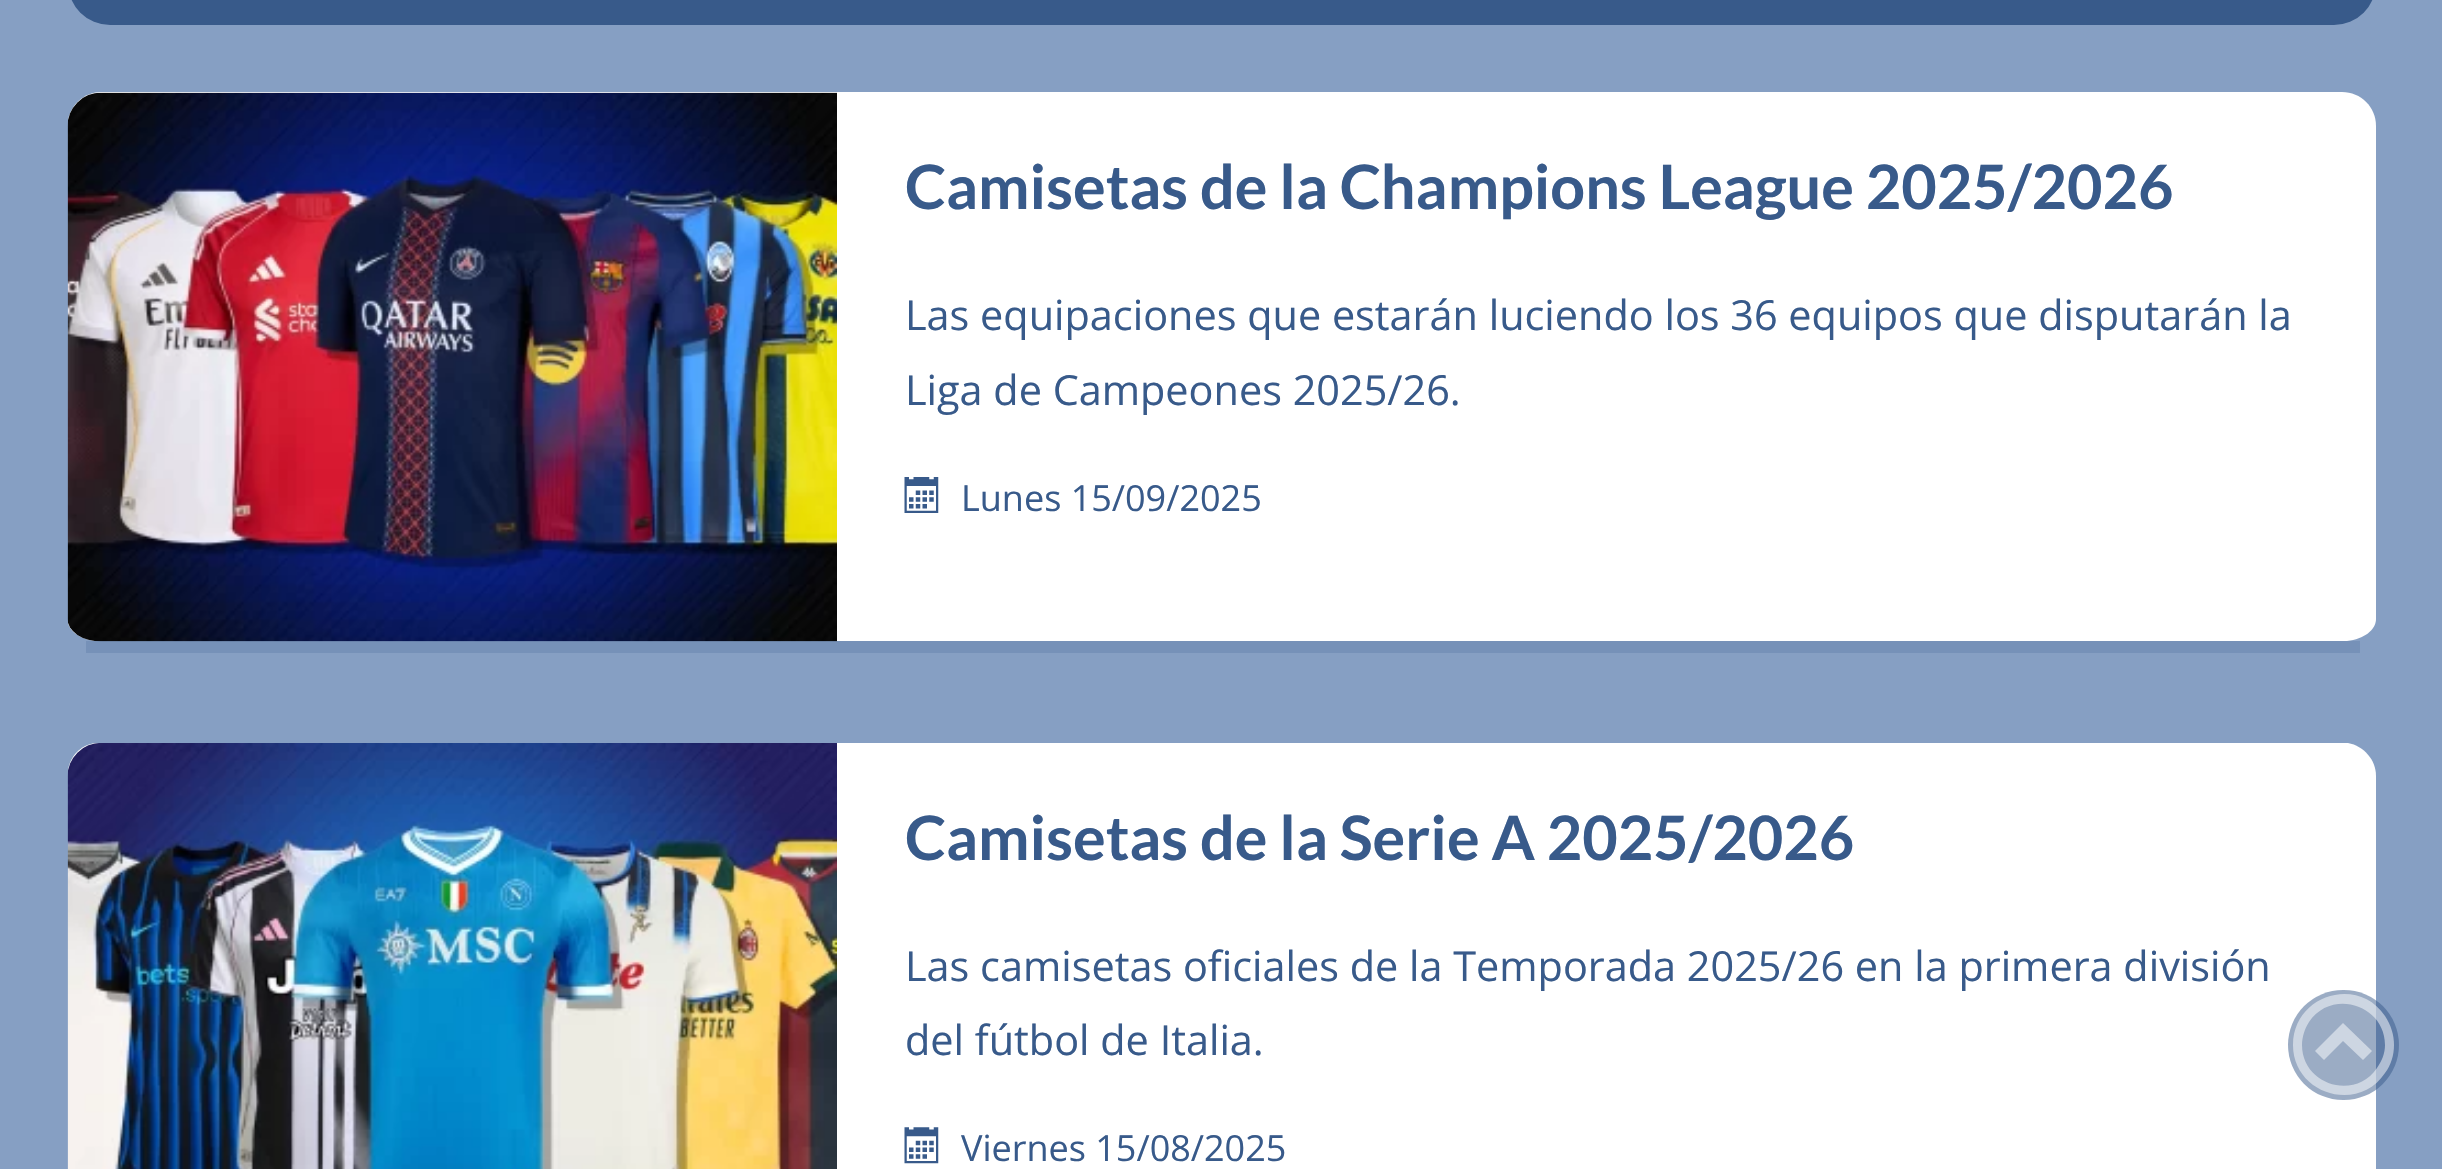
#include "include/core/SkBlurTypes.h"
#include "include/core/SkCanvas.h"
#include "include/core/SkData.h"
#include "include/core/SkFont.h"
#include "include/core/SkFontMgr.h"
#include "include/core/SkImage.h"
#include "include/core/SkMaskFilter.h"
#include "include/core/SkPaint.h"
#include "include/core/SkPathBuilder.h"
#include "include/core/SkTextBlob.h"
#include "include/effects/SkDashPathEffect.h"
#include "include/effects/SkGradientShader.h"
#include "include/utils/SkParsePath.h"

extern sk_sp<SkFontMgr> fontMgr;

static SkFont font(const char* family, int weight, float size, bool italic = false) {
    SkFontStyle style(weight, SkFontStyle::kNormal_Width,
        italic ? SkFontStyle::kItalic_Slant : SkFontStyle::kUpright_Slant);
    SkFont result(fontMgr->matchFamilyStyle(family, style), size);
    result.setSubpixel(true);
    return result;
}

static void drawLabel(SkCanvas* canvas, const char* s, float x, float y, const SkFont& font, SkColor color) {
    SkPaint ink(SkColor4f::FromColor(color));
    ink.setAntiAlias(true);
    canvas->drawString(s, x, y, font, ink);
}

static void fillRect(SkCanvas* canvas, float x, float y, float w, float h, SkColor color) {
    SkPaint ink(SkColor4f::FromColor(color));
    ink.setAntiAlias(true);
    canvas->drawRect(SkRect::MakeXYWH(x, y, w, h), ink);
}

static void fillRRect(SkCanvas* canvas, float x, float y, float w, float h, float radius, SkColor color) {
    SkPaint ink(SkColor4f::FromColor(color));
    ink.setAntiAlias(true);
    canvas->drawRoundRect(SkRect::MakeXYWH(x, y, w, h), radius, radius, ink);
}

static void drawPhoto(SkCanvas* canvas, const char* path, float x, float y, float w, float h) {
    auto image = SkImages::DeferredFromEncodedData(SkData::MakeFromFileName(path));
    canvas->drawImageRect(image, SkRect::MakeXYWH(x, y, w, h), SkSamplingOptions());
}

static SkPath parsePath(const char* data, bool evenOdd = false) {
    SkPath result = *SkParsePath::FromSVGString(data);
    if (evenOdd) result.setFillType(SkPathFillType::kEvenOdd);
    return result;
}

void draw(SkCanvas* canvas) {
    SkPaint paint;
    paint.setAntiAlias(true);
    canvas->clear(0xFF869FC3);
    fillRRect(canvas, 68, -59, 2308, 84, 58.5f, 0xFF385A8A);
    fillRect(canvas, 86, 641, 2274, 12, 0xFF7691B8);
    paint.setColor(0xFFFFFFFF);
    canvas->drawPath(parsePath("M101 92H837V641H96C82 640 70 632 68 623V120C71 104 85 92 101 92Z"), paint);
    drawPhoto(canvas, "assets/img1.png", 67, 92, 770, 550);
    canvas->drawPath(parsePath("M2347 641H837V92H2342C2361 92 2376 107 2376 126V619C2376 630 2364 639 2347 641Z"), paint);
    SkFont font1 = font("Lato", 700, 61.2f);
    drawLabel(canvas, "Camisetas de la Champions League 2025/2026", 905, 209, font1, 0xFF385A8A);
    SkFont font2 = font("Open Sans", 400, 41.4f);
    drawLabel(canvas, "Las equipaciones que estarán luciendo los 36 equipos que disputarán la", 905, 330, font2, 0xFF385A8A);
    drawLabel(canvas, "Liga de Campeones 2025/26.", 905, 405, font2, 0xFF385A8A);
    drawPhoto(canvas, "assets/img2.png", 904, 477, 35, 36);
    SkFont font3 = font("Open Sans", 400, 36);
    drawLabel(canvas, "Lunes 15/09/2025", 961, 511, font3, 0xFF385A8A);
    canvas->drawPath(parsePath("M68 770C70 756 81 745 95 743H837V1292H101C85 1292 71 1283 68 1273Z"), paint);
    drawPhoto(canvas, "assets/img3.png", 67, 743, 770, 426);
    canvas->drawPath(parsePath("M837 743V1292H2342C2361 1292 2376 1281 2376 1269V776C2376 760 2364 746 2348 743Z"), paint);
    drawLabel(canvas, "Camisetas de la Serie A 2025/2026", 905, 860, font1, 0xFF385A8A);
    drawLabel(canvas, "Las camisetas oficiales de la Temporada 2025/26 en la primera división", 905, 981, font2, 0xFF385A8A);
    drawLabel(canvas, "del fútbol de Italia.", 905, 1055, font2, 0xFF385A8A);
    drawPhoto(canvas, "assets/img4.png", 904, 1127, 35, 37);
    drawLabel(canvas, "Viernes 15/08/2025", 961, 1161, font3, 0xFF385A8A);
    fillRRect(canvas, 2288, 990, 111, 110, 55, 0x80385A8A);
    paint.setColor(0x80FFFFFF);
    canvas->drawPath(parsePath("M2293 1045C2293 1094 2358 1114 2385 1073C2391 1065 2394 1055 2394 1045C2394 1035 2391 1025 2385 1016C2358 975 2293 995 2293 1045ZM2385 1045C2385 1053 2382 1061 2377 1068C2355 1101 2302 1085 2302 1045C2302 1037 2305 1028 2309 1022C2332 988 2385 1005 2385 1045ZM2363 1060L2372 1051L2343 1023L2315 1051L2324 1060L2343 1041Z"), paint);
}
